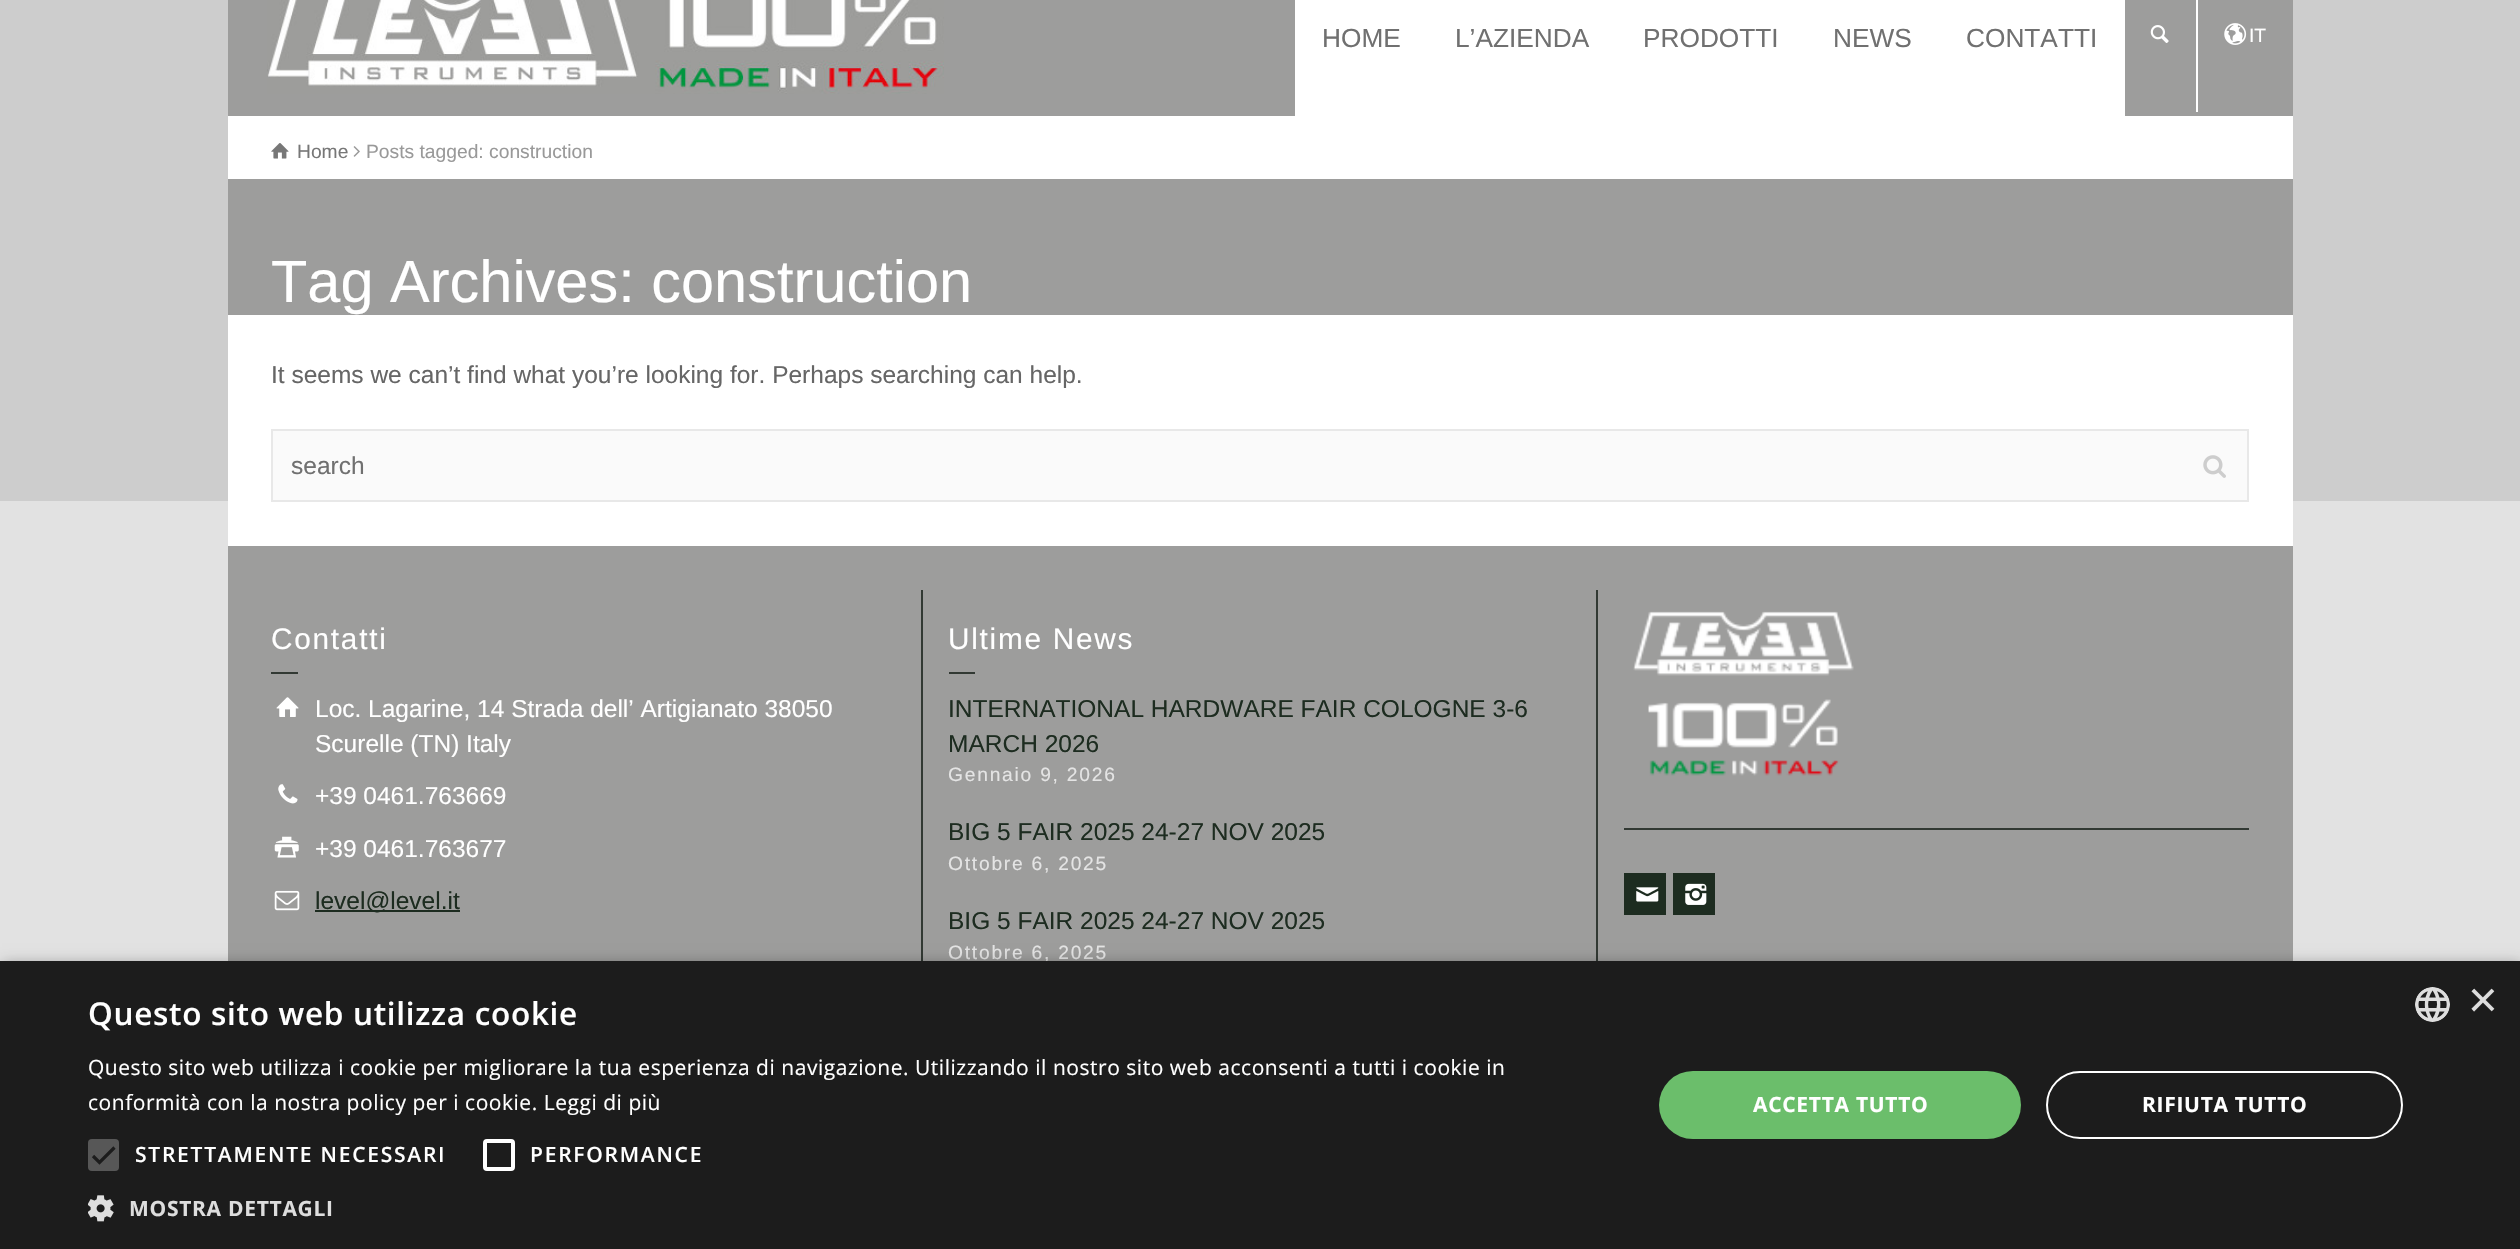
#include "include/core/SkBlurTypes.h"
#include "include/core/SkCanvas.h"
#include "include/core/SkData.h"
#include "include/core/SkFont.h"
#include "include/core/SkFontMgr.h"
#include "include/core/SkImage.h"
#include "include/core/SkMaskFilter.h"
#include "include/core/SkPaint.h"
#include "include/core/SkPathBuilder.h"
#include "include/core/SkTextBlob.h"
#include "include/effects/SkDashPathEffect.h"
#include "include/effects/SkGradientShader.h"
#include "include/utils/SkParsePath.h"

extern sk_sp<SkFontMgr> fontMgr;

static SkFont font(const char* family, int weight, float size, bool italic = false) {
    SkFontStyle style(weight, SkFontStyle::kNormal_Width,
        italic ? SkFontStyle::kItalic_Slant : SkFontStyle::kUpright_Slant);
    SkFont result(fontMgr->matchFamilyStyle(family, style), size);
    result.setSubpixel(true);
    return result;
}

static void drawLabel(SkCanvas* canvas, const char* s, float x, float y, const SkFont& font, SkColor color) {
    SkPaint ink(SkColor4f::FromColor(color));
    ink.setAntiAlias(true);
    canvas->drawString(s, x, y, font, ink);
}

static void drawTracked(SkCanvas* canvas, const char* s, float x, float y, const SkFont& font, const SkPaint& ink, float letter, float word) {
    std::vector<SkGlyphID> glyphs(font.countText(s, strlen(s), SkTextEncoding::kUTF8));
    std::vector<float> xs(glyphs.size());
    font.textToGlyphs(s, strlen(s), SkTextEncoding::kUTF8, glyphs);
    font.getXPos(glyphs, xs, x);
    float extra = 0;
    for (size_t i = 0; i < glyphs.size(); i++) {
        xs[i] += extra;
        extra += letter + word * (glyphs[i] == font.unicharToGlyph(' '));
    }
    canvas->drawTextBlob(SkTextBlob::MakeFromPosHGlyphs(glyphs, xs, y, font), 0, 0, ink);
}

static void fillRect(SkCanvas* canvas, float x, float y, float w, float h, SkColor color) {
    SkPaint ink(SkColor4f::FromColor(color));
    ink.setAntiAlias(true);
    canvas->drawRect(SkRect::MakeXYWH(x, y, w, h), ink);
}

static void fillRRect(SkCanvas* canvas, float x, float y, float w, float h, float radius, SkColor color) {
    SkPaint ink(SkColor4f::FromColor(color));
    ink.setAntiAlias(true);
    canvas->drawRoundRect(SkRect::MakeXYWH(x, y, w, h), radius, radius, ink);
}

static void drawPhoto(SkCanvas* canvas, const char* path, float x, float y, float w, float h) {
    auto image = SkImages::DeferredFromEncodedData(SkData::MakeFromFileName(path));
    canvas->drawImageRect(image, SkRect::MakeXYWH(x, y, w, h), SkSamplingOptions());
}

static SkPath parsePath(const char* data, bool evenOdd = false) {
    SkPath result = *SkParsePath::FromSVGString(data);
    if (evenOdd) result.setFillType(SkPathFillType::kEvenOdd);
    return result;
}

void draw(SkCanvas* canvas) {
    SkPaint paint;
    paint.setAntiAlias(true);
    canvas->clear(0xFFE2E2E2);
    fillRect(canvas, 0, 0, 2520, 501, 0xFFCDCDCD);
    fillRect(canvas, 228, 0, 2065, 116, 0xFF9D9D9C);
    drawPhoto(canvas, "assets/img1.png", 267, 0, 677, 94);
    fillRect(canvas, 1295, 0, 830, 116, 0xFFFFFFFF);
    SkFont font1 = font("Liberation Sans", 400, 26.25f);
    drawLabel(canvas, "HOME", 1322, 47, font1, 0xFF707070);
    drawLabel(canvas, "L’AZIENDA", 1455, 47, font1, 0xFF707070);
    drawLabel(canvas, "PRODOTTI", 1643, 47, font1, 0xFF707070);
    drawLabel(canvas, "NEWS", 1833, 47, font1, 0xFF707070);
    drawLabel(canvas, "CONTATTI", 1966, 47, font1, 0xFF707070);
    fillRect(canvas, 2196, 0, 2, 112, 0xFFFFFFFF);
    drawPhoto(canvas, "assets/img2.png", 2150, 25, 19, 18);
    drawPhoto(canvas, "assets/img3.png", 2224, 23, 23, 22);
    SkFont font2 = font("Liberation Sans", 400, 19.25f);
    drawLabel(canvas, "IT", 2249, 42, font2, 0xFFFFFFFF);
    fillRect(canvas, 228, 179, 2065, 136, 0xFF9D9D9C);
    fillRect(canvas, 228, 116, 2065, 63, 0xFFFFFFFF);
    drawPhoto(canvas, "assets/img4.png", 271, 143, 18, 16);
    drawLabel(canvas, "Home", 297, 158, font2, 0xFF777777);
    drawPhoto(canvas, "assets/img5.png", 353, 146, 7, 11);
    drawLabel(canvas, "Posts tagged: construction", 366, 158, font2, 0xFF999999);
    SkFont font3 = font("Liberation Sans", 400, 59.5f);
    drawLabel(canvas, "Tag Archives: construction", 271, 302, font3, 0xFFFFFFFF);
    fillRect(canvas, 228, 315, 2065, 231, 0xFFFFFFFF);
    SkFont font4 = font("Liberation Sans", 400, 24.5f);
    drawLabel(canvas, "It seems we can’t find what you’re looking for. Perhaps searching can help.", 271, 383, font4, 0xFF666666);
    paint.setColor(0xFFFAFAFA);
    canvas->drawRect(SkRect::MakeXYWH(272, 430, 1976, 71), paint);
    paint.setStroke(true);
    paint.setStrokeWidth(2);
    paint.setColor(0xFFE8E8E8);
    canvas->drawRect(SkRect::MakeXYWH(272, 430, 1976, 71), paint);
    drawLabel(canvas, "search", 291, 474, font4, 0xFF707070);
    drawPhoto(canvas, "assets/img6.png", 2203, 455, 23, 23);
    fillRect(canvas, 228, 546, 2065, 415, 0xFF9D9D9C);
    SkFont font5 = font("Liberation Sans", 400, 29.75f);
    paint.setStroke(false);
    paint.setColor(0xFFFFFFFF);
    drawTracked(canvas, "Contatti", 271, 649, font5, paint, 1.75f, 0);
    fillRect(canvas, 271, 672, 27, 2, 0xFF323933);
    drawPhoto(canvas, "assets/img7.png", 276, 697, 23, 20);
    drawLabel(canvas, "Loc. Lagarine, 14 Strada dell’ Artigianato 38050", 315, 717, font4, 0xFFFFFFFF);
    drawLabel(canvas, "Scurelle (TN) Italy", 315, 752, font4, 0xFFFFFFFF);
    drawPhoto(canvas, "assets/img8.png", 278, 784, 20, 20);
    drawLabel(canvas, "+39 0461.763669", 315, 804, font4, 0xFFFFFFFF);
    drawPhoto(canvas, "assets/img9.png", 274, 836, 25, 22);
    drawLabel(canvas, "+39 0461.763677", 315, 857, font4, 0xFFFFFFFF);
    drawPhoto(canvas, "assets/img10.png", 274, 890, 26, 21);
    fillRect(canvas, 315, 910, 145, 2, 0xFF1D2C20);
    drawLabel(canvas, "level@level.it", 315, 909, font4, 0xFF1D2C20);
    fillRect(canvas, 921, 590, 2, 371, 0xFF323933);
    drawTracked(canvas, "Ultime News", 948, 649, font5, paint, 1.75f, 0);
    fillRect(canvas, 949, 672, 26, 2, 0xFF323933);
    drawLabel(canvas, "INTERNATIONAL HARDWARE FAIR COLOGNE 3-6", 948, 717, font4, 0xFF1D2C20);
    drawLabel(canvas, "MARCH 2026", 948, 752, font4, 0xFF1D2C20);
    paint.setColor(0xFFE4E4E4);
    drawTracked(canvas, "Gennaio 9, 2026", 948, 781, font2, paint, 1.75f, 0);
    drawLabel(canvas, "BIG 5 FAIR 2025 24-27 NOV 2025", 948, 840, font4, 0xFF1D2C20);
    drawTracked(canvas, "Ottobre 6, 2025", 948, 870, font2, paint, 1.75f, 0);
    drawLabel(canvas, "BIG 5 FAIR 2025 24-27 NOV 2025", 948, 929, font4, 0xFF1D2C20);
    drawTracked(canvas, "Ottobre 6, 2025", 948, 959, font2, paint, 1.75f, 0);
    fillRect(canvas, 1596, 590, 2, 371, 0xFF323933);
    drawPhoto(canvas, "assets/img11.png", 1633, 611, 221, 165);
    fillRect(canvas, 1624, 828, 625, 2, 0xFF323933);
    fillRect(canvas, 1624, 873, 42, 42, 0xFF1D2C20);
    drawPhoto(canvas, "assets/img12.png", 1636, 887, 23, 15);
    fillRect(canvas, 1673, 873, 42, 42, 0xFF1D2C20);
    drawPhoto(canvas, "assets/img13.png", 1685, 883, 22, 22);
    paint.setColor(0x59000000);
    paint.setMaskFilter(SkMaskFilter::MakeBlur(kNormal_SkBlurStyle, 7));
    canvas->drawRect(SkRect::MakeXYWH(2, 964, 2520, 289), paint);
    paint.setMaskFilter(nullptr);
    fillRect(canvas, 0, 961, 2520, 288, 0xFF1C1C1C);
    SkFont font6 = font("Open Sans", 600, 31.5f);
    paint.setColor(0xFFFFFFFF);
    drawTracked(canvas, "Questo sito web utilizza cookie", 88, 1025, font6, paint, 0.7f, 0);
    SkFont font7 = font("Open Sans", 400, 21);
    drawTracked(canvas, "Questo sito web utilizza i cookie per migliorare la tua esperienza di navigazione. Utilizzando il nostro sito web acconsenti a tutti i cookie in", 88, 1075, font7, paint, 0.53f, 0);
    drawTracked(canvas, "conformità con la nostra policy per i cookie. Leggi di più", 88, 1110, font7, paint, 0.53f, 0);
    fillRRect(canvas, 88, 1139, 31, 32, 4, 0xFF575757);
    paint.setStroke(true);
    paint.setStrokeWidth(3.2f);
    paint.setColor(0xFF1C1C1C);
    canvas->drawPath(parsePath("M93 1156L99.5 1162.5L114.5 1147.5"), paint);
    SkFont font8 = font("Open Sans", 600, 21);
    paint.setStroke(false);
    paint.setColor(0xFFFFFFFF);
    drawTracked(canvas, "STRETTAMENTE NECESSARI", 135, 1162, font8, paint, 1.75f, 0);
    paint.setStroke(true);
    paint.setStrokeWidth(4);
    canvas->drawRoundRect(SkRect::MakeXYWH(485, 1141, 28, 28), 2, 2, paint);
    paint.setStroke(false);
    drawTracked(canvas, "PERFORMANCE", 530, 1162, font8, paint, 1.75f, 0);
    drawPhoto(canvas, "assets/img14.png", 88, 1195, 26, 27);
    SkFont font9 = font("Open Sans", 700, 21);
    paint.setColor(0xFFDDDDDD);
    drawTracked(canvas, "MOSTRA DETTAGLI", 129, 1216, font9, paint, 0.7f, 0);
    fillRRect(canvas, 1659, 1071, 362, 68, 34, 0xFF6BBE6B);
    paint.setColor(0xFFFFFFFF);
    drawTracked(canvas, "ACCETTA TUTTO", 1753, 1112, font9, paint, 0.7f, 0);
    paint.setStroke(true);
    paint.setStrokeWidth(2);
    canvas->drawRoundRect(SkRect::MakeXYWH(2047, 1072, 355, 66), 33, 33, paint);
    paint.setStroke(false);
    drawTracked(canvas, "RIFIUTA TUTTO", 2142, 1112, font9, paint, 0.7f, 0);
    drawPhoto(canvas, "assets/img15.png", 2415, 987, 35, 35);
    SkFont font10 = font("Liberation Sans", 400, 51);
    drawLabel(canvas, "×", 2468, 1017, font10, 0xFFDDDDDD);
}
